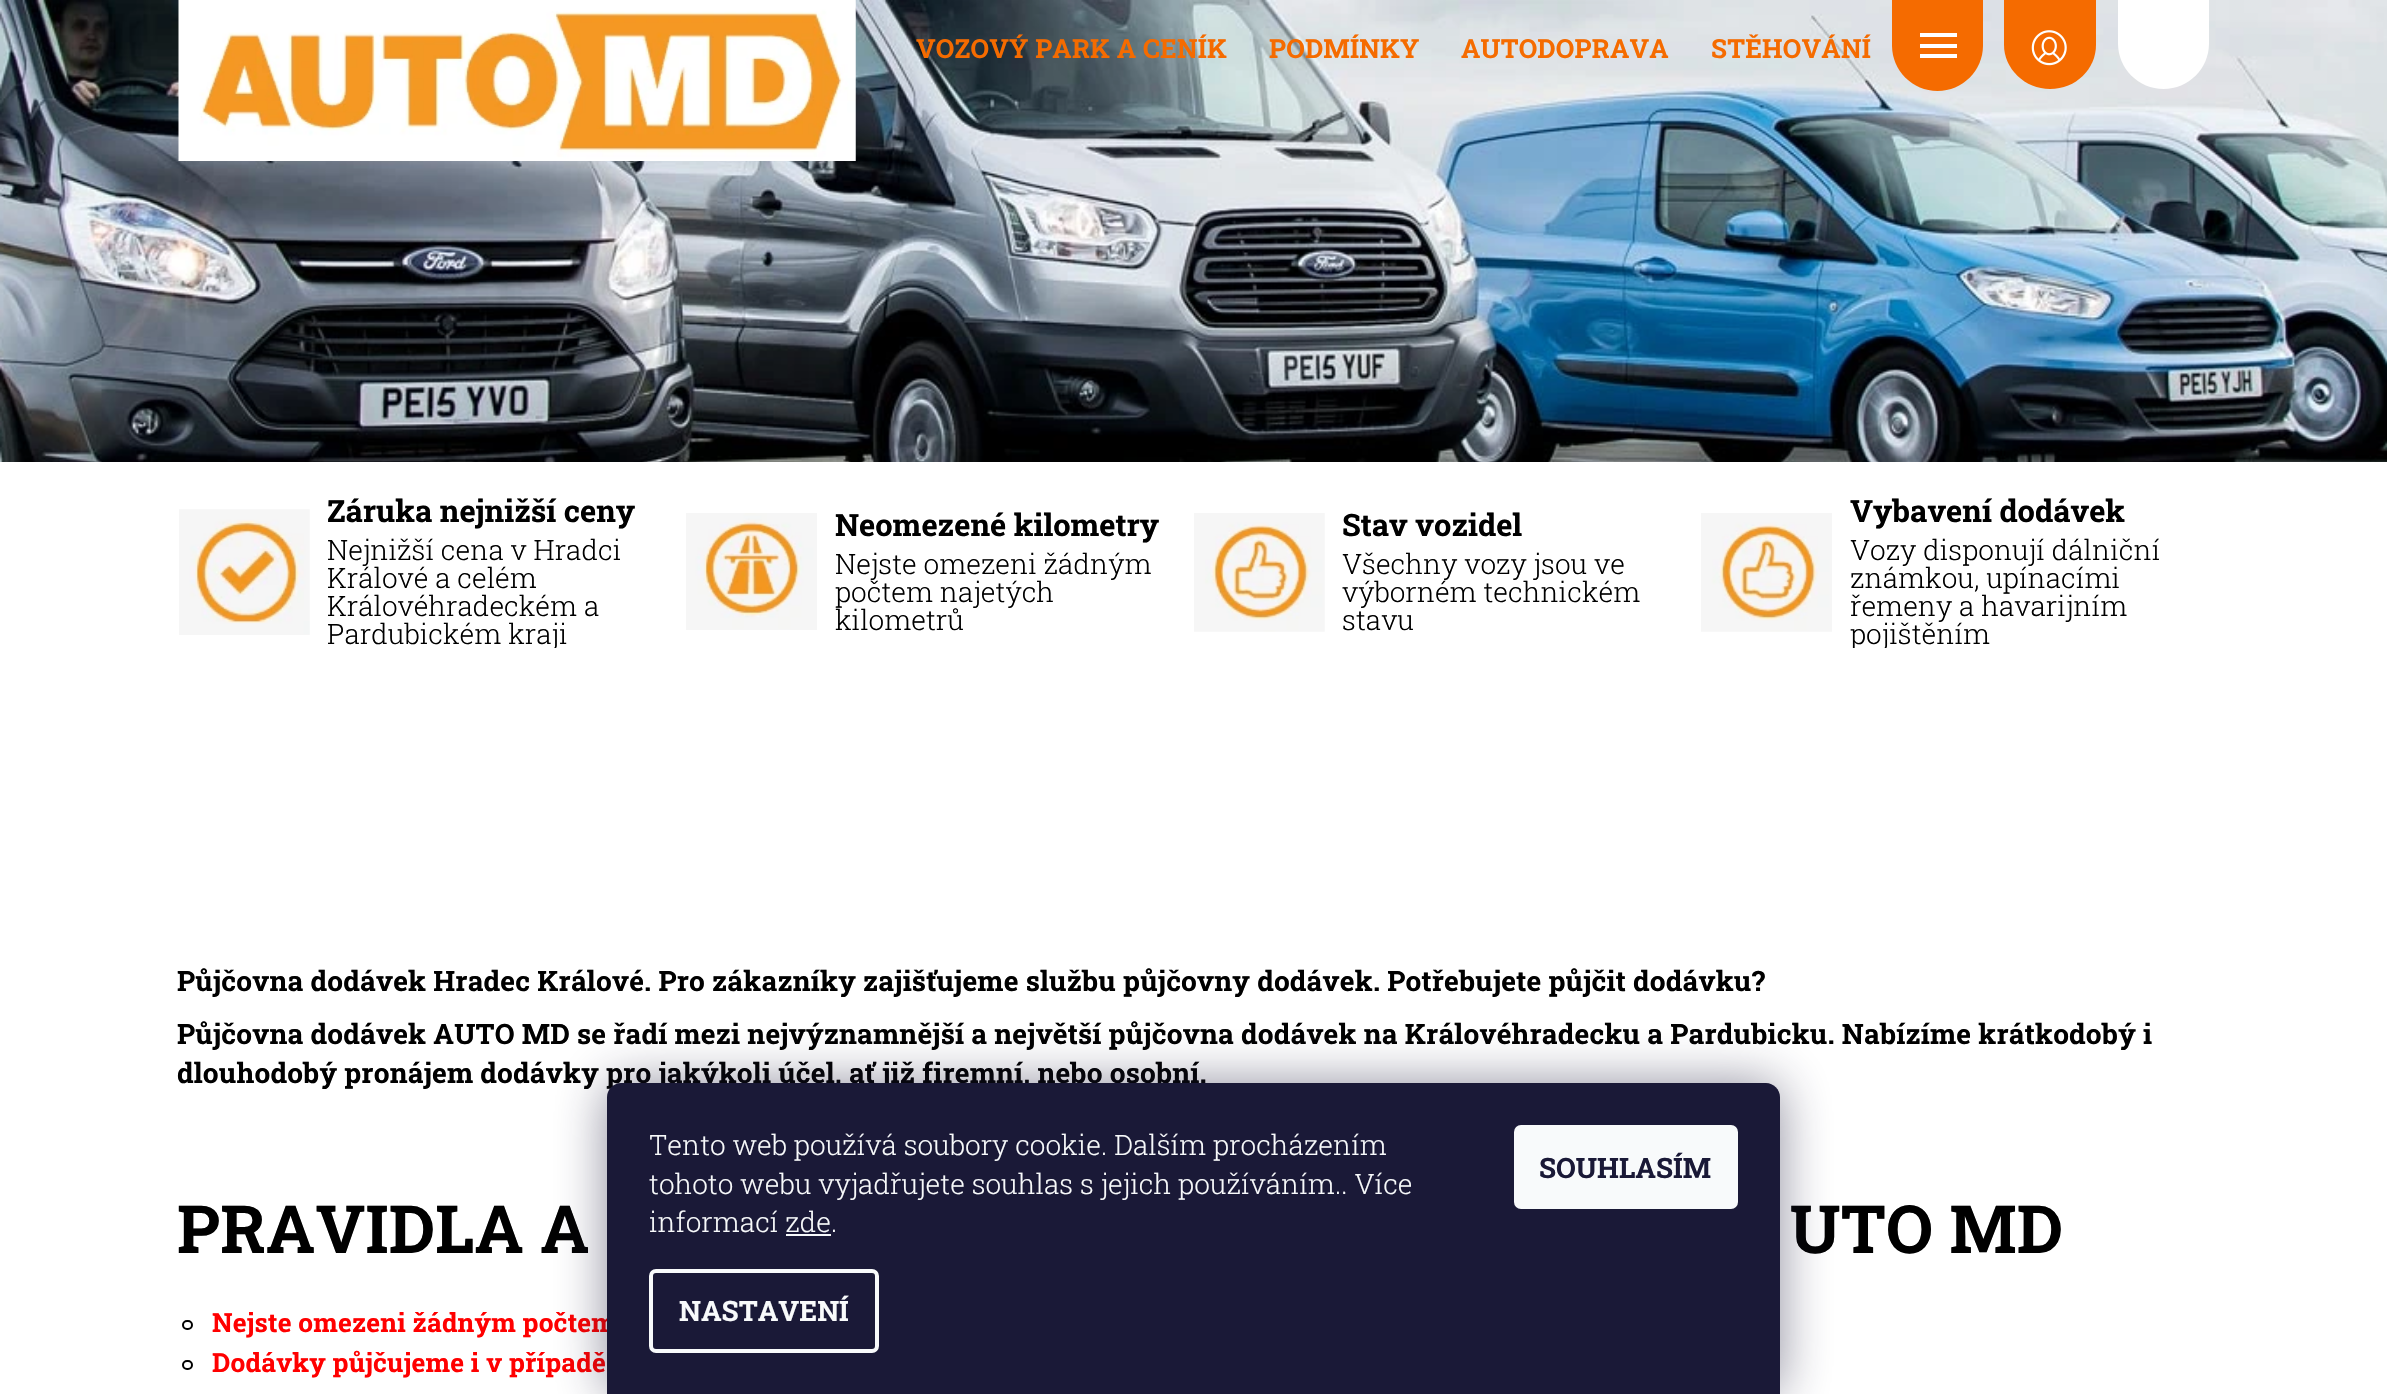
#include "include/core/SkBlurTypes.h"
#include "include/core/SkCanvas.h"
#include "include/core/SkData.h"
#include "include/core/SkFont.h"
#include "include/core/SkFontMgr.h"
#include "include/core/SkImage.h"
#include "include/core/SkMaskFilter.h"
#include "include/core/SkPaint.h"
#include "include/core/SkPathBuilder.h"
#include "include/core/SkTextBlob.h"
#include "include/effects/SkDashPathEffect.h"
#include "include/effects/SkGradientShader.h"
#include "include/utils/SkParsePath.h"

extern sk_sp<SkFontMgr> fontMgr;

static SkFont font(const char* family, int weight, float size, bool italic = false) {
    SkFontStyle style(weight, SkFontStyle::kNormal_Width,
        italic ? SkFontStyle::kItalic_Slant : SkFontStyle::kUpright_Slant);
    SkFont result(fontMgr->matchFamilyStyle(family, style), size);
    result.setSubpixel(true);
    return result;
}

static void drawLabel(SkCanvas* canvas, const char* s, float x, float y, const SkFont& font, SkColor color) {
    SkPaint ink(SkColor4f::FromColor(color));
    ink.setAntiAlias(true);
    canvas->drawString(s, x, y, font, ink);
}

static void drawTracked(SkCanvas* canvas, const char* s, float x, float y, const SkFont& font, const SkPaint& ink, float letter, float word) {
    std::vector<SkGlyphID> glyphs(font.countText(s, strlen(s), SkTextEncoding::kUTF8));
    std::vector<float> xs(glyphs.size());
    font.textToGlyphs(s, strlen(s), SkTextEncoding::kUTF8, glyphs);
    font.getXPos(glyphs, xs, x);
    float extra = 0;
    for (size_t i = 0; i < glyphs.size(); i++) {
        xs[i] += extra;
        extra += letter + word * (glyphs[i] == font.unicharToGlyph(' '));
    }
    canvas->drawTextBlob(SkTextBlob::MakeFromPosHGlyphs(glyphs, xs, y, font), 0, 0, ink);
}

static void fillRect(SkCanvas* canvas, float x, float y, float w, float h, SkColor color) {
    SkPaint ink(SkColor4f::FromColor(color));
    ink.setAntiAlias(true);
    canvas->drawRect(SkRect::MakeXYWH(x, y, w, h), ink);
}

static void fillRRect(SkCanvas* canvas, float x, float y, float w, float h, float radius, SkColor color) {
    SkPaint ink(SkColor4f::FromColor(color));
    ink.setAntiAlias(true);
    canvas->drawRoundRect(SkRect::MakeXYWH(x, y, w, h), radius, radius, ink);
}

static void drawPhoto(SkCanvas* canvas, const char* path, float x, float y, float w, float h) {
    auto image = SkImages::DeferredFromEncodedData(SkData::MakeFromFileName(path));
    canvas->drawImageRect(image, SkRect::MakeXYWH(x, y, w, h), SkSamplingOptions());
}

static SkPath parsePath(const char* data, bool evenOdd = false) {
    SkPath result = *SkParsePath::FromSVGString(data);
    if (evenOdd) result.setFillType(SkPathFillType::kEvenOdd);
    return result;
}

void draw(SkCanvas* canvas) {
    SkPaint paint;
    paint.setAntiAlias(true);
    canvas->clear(0xFFFFFFFF);
    drawPhoto(canvas, "assets/img1.png", 0, 0, 2387, 462);
    drawPhoto(canvas, "assets/img2.png", 178, 0, 678, 161);
    SkFont font1 = font("Roboto Slab", 700, 26.25f);
    paint.setColor(0xFFF56B00);
    drawTracked(canvas, "VOZOVÝ PARK A CENÍK", 916, 58, font1, paint, 0.18f, 0);
    drawTracked(canvas, "PODMÍNKY", 1269, 58, font1, paint, 0.18f, 0);
    drawTracked(canvas, "AUTODOPRAVA", 1461, 58, font1, paint, 0.18f, 0);
    drawTracked(canvas, "STĚHOVÁNÍ", 1711, 58, font1, paint, 0.18f, 0);
    canvas->drawPath(parsePath("M1892 0H1983V45.5C1983 70.5 1962.5 91 1937.5 91C1912.5 91 1892 70.5 1892 45.5Z"), paint);
    fillRect(canvas, 1920, 33, 37, 4, 0xFFFFFFFF);
    fillRect(canvas, 1920, 44, 37, 4, 0xFFFFFFFF);
    fillRect(canvas, 1920, 54, 37, 4, 0xFFFFFFFF);
    canvas->drawPath(parsePath("M2004 0H2096V45C2096 69 2076 89 2050 89C2025 89 2004 69 2004 45Z"), paint);
    drawPhoto(canvas, "assets/img3.png", 2031, 30, 36, 36);
    paint.setColor(0xFFFFFFFF);
    canvas->drawPath(parsePath("M2118 0H2209V43.5C2209 68.5 2188.5 89 2163.5 89C2138.5 89 2118 68.5 2118 43.5Z"), paint);
    drawPhoto(canvas, "assets/img4.png", 179, 509, 131, 126);
    SkFont font2 = font("Roboto Slab", 700, 30.75f);
    drawLabel(canvas, "Záruka nejnižší ceny", 327, 522, font2, 0xFF000000);
    SkFont font3 = font("Roboto Slab", 300, 28);
    drawLabel(canvas, "Nejnižší cena v Hradci", 327, 560, font3, 0xFF000000);
    drawLabel(canvas, "Králové a celém", 327, 588, font3, 0xFF000000);
    drawLabel(canvas, "Královéhradeckém a", 327, 616, font3, 0xFF000000);
    canvas->save();
    canvas->clipRect(SkRect::MakeXYWH(327, 497, 359, 151));
    drawLabel(canvas, "Pardubickém kraji", 327, 644, font3, 0xFF000000);
    canvas->restore();
    drawPhoto(canvas, "assets/img5.png", 686, 513, 131, 117);
    drawLabel(canvas, "Neomezené kilometry", 835, 536, font2, 0xFF000000);
    drawLabel(canvas, "Nejste omezeni žádným", 835, 574, font3, 0xFF000000);
    drawLabel(canvas, "počtem najetých", 835, 602, font3, 0xFF000000);
    drawLabel(canvas, "kilometrů", 835, 630, font3, 0xFF000000);
    drawPhoto(canvas, "assets/img6.png", 1194, 513, 131, 119);
    drawLabel(canvas, "Stav vozidel", 1342, 536, font2, 0xFF000000);
    drawLabel(canvas, "Všechny vozy jsou ve", 1342, 574, font3, 0xFF000000);
    drawLabel(canvas, "výborném technickém", 1342, 602, font3, 0xFF000000);
    drawLabel(canvas, "stavu", 1342, 630, font3, 0xFF000000);
    drawPhoto(canvas, "assets/img7.png", 1701, 513, 131, 119);
    drawLabel(canvas, "Vybavení dodávek", 1850, 522, font2, 0xFF000000);
    drawLabel(canvas, "Vozy disponují dálniční", 1850, 560, font3, 0xFF000000);
    drawLabel(canvas, "známkou, upínacími", 1850, 588, font3, 0xFF000000);
    drawLabel(canvas, "řemeny a havarijním", 1850, 616, font3, 0xFF000000);
    canvas->save();
    canvas->clipRect(SkRect::MakeXYWH(1850, 497, 359, 151));
    drawLabel(canvas, "pojištěním", 1850, 644, font3, 0xFF000000);
    canvas->restore();
    SkFont font4 = font("Roboto Slab", 700, 28);
    paint.setColor(0xFF000000);
    drawTracked(canvas, "Půjčovna dodávek Hradec Králové. Pro zákazníky zajišťujeme službu půjčovny dodávek. Potřebujete půjčit dodávku?", 177, 991, font4, paint, 0.18f, 0);
    drawTracked(canvas, "Půjčovna dodávek AUTO MD se řadí mezi nejvýznamnější a největší půjčovna dodávek na Královéhradecku a Pardubicku. Nabízíme krátkodobý i", 177, 1044, font4, paint, 0.18f, 0);
    drawTracked(canvas, "dlouhodobý pronájem dodávky pro jakýkoli účel, ať již firemní, nebo osobní.", 177, 1083, font4, paint, 0.18f, 0);
    SkFont font5 = font("Roboto Slab", 700, 66.5f);
    drawTracked(canvas, "PRAVIDLA A", 177, 1253, font5, paint, 0.18f, 0);
    drawTracked(canvas, "UTO MD", 1790, 1253, font5, paint, 0.18f, 0);
    paint.setStroke(true);
    paint.setStrokeWidth(2);
    canvas->drawRoundRect(SkRect::MakeXYWH(183, 1321, 9, 8), 4, 4, paint);
    paint.setStroke(false);
    paint.setColor(0xFFFF0000);
    drawTracked(canvas, "Nejste omezeni žádným počtem", 212, 1332, font1, paint, 0.18f, 0);
    paint.setStroke(true);
    paint.setColor(0xFF000000);
    canvas->drawRoundRect(SkRect::MakeXYWH(183, 1361, 9, 8), 4, 4, paint);
    paint.setStroke(false);
    paint.setColor(0xFFFF0000);
    drawTracked(canvas, "Dodávky půjčujeme i v případě", 212, 1372, font1, paint, 0.18f, 0);
    paint.setColor(0x801B1939);
    paint.setMaskFilter(SkMaskFilter::MakeBlur(kNormal_SkBlurStyle, 26));
    canvas->drawRoundRect(SkRect::MakeXYWH(607, 1083, 1173, 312), 14, 14, paint);
    paint.setMaskFilter(nullptr);
    paint.setColor(0xFF1A1937);
    canvas->drawPath(parsePath("M621 1083H1766C1773.5 1083 1780 1089.5 1780 1097V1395H607V1097C607 1089.5 613.5 1083 621 1083Z"), paint);
    drawLabel(canvas, "Tento web používá soubory cookie. Dalším procházením", 649, 1155, font3, 0xFFF8FAFB);
    drawLabel(canvas, "tohoto webu vyjadřujete souhlas s jejich používáním.. Více", 649, 1194, font3, 0xFFF8FAFB);
    drawLabel(canvas, "informací zde.", 649, 1232, font3, 0xFFF8FAFB);
    fillRect(canvas, 786, 1234, 45, 2, 0xFFF8FAFB);
    paint.setStroke(true);
    paint.setStrokeWidth(4);
    paint.setColor(0xFFF8FAFB);
    canvas->drawRoundRect(SkRect::MakeXYWH(651, 1271, 226, 80), 5, 5, paint);
    drawLabel(canvas, "NASTAVENÍ", 679, 1321, font4, 0xFFF8FAFB);
    fillRRect(canvas, 1514, 1125, 224, 84, 7, 0xFFF8FAFB);
    drawLabel(canvas, "SOUHLASÍM", 1539, 1178, font4, 0xFF1A1937);
}
